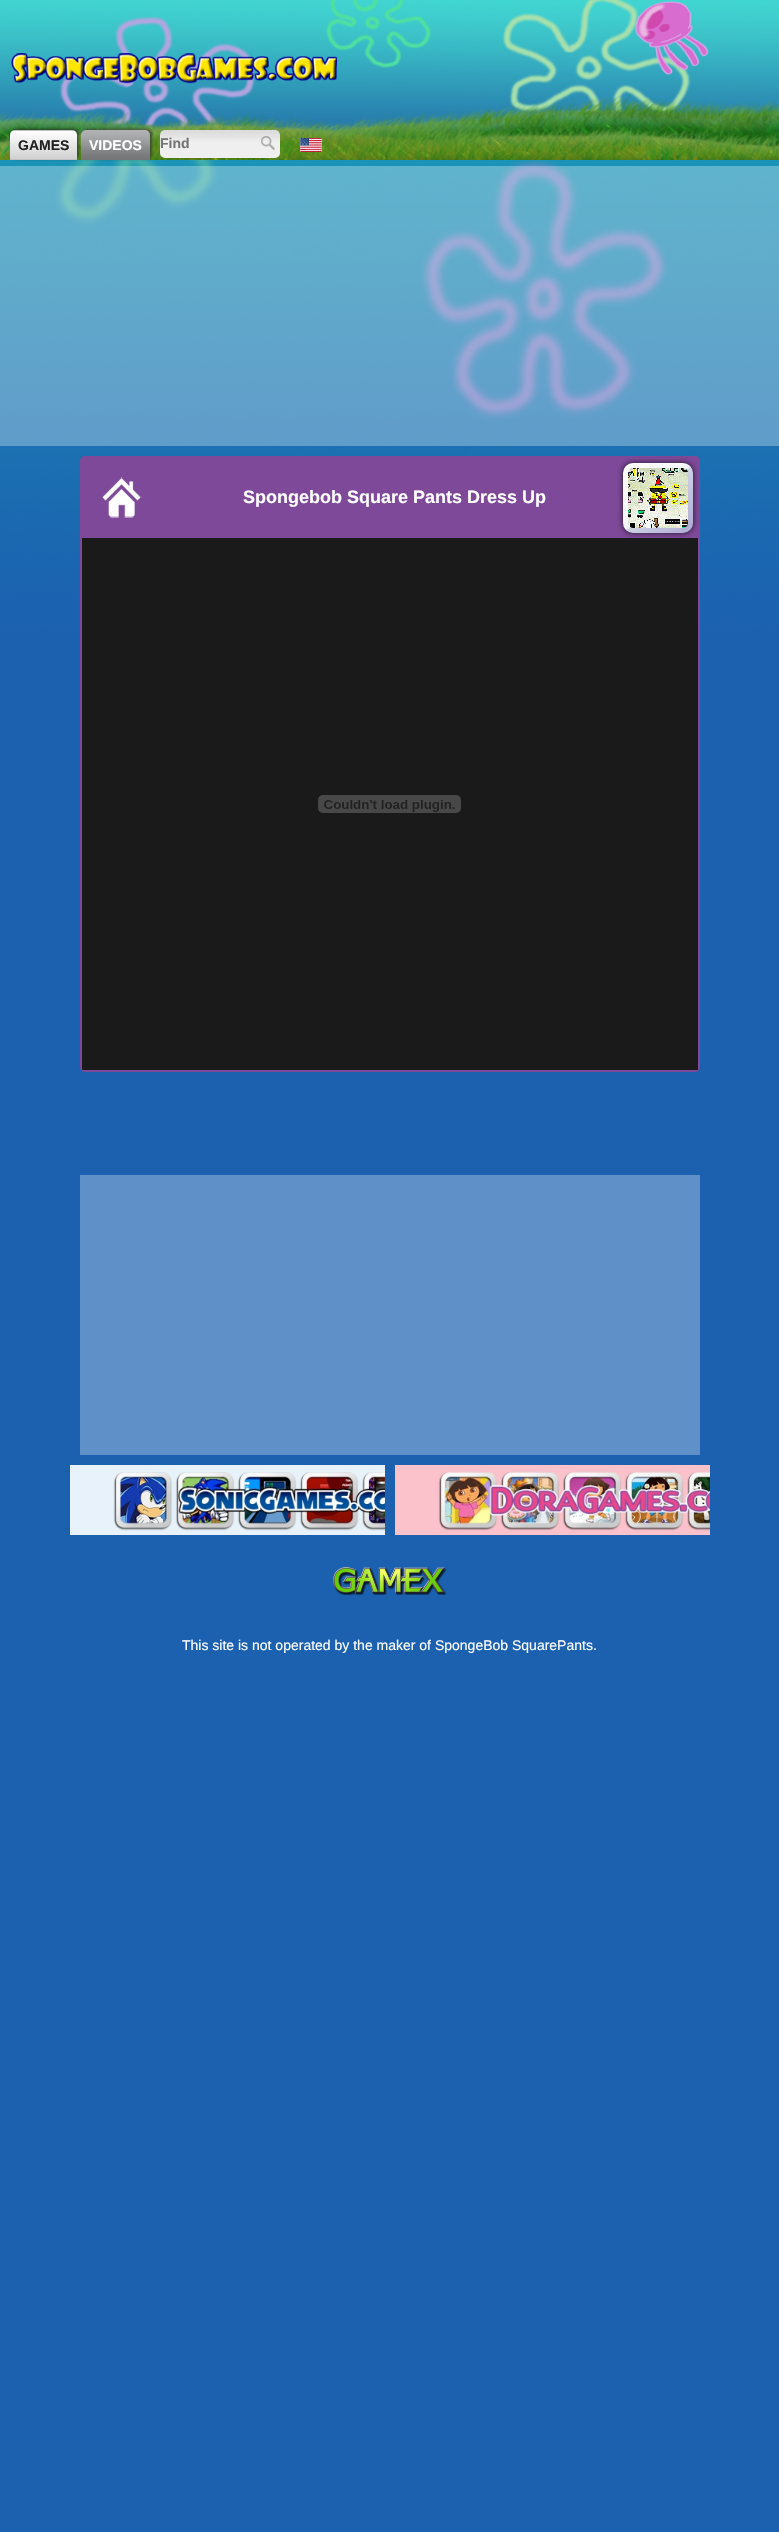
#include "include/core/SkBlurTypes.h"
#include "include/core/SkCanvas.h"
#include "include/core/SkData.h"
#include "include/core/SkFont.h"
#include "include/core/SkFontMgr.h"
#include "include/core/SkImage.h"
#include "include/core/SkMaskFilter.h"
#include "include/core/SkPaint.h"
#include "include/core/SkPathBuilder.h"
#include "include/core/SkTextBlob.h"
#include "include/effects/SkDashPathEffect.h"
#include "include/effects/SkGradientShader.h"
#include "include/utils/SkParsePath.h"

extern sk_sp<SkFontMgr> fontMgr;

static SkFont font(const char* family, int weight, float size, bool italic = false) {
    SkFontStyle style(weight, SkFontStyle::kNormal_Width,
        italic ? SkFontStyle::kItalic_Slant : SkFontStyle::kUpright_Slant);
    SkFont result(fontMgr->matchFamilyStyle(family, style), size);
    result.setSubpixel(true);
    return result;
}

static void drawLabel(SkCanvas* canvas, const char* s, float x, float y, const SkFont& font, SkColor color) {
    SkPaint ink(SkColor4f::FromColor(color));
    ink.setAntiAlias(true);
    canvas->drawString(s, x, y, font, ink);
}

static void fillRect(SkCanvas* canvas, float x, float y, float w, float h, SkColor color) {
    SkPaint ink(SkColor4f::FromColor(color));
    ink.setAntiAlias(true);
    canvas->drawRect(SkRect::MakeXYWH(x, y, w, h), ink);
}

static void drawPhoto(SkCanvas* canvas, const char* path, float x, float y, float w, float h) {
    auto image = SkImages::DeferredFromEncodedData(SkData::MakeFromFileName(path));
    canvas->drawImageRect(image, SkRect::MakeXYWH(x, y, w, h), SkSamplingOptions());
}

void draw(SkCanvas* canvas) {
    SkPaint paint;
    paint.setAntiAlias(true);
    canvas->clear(0xFF1B61B0);
    drawPhoto(canvas, "assets/img1.png", 0, 160, 779, 475);
    drawPhoto(canvas, "assets/img2.png", 0, 0, 779, 160);
    drawPhoto(canvas, "assets/img3.png", 11, 53, 326, 31);
    paint.setColor(0xBF323232);
    paint.setMaskFilter(SkMaskFilter::MakeBlur(kNormal_SkBlurStyle, 1.5f));
    canvas->drawRoundRect(SkRect::MakeXYWH(12, 129, 67, 30), 5, 5, paint);
    paint.setMaskFilter(nullptr);
    drawPhoto(canvas, "assets/img4.png", 10, 130, 67, 30);
    SkFont font1 = font("Liberation Sans", 700, 14);
    drawLabel(canvas, "GAMES", 18, 150, font1, 0xFF222222);
    paint.setMaskFilter(SkMaskFilter::MakeBlur(kNormal_SkBlurStyle, 1.5f));
    canvas->drawRoundRect(SkRect::MakeXYWH(83, 129, 69, 30), 5, 5, paint);
    paint.setMaskFilter(nullptr);
    drawPhoto(canvas, "assets/img5.png", 81, 130, 69, 30);
    drawLabel(canvas, "VIDEOS", 89, 150, font1, 0xFFFFFFFF);
    {
        const SkColor colors[] = {0xFFDDDDDD, 0xFFEFEFEF};
        const float stops[] = {0.08f, 0.45f};
        const SkPoint ends[] = {{220, 130}, {220, 158}};
        paint.setShader(SkGradientShader::MakeLinear(ends, colors, stops, 2, SkTileMode::kClamp));
        paint.setAlpha(255);
    }
    canvas->drawRoundRect(SkRect::MakeXYWH(160, 130, 120, 28), 5, 5, paint);
    drawLabel(canvas, "Find", 160, 148, font1, 0xFF757575);
    drawPhoto(canvas, "assets/img6.png", 261, 136, 14, 14);
    drawPhoto(canvas, "assets/img7.png", 300, 138, 22, 14);
    fillRect(canvas, 0, 166, 779, 280, 0x4DFFFFFF);
    paint.setShader(nullptr);
    paint.setColor(0xFF7E4999);
    canvas->drawRoundRect(SkRect::MakeXYWH(81, 457, 618, 614), 4, 4, paint);
    paint.setStroke(true);
    paint.setStrokeWidth(2);
    canvas->drawRoundRect(SkRect::MakeXYWH(81, 457, 618, 614), 4, 4, paint);
    drawPhoto(canvas, "assets/img8.png", 102, 477, 40, 41);
    SkFont font2 = font("Liberation Sans", 700, 18);
    drawLabel(canvas, "Spongebob Square Pants Dress Up", 243, 503, font2, 0xFFFFFFFF);
    paint.setStroke(false);
    paint.setColor(0x87000000);
    paint.setMaskFilter(SkMaskFilter::MakeBlur(kNormal_SkBlurStyle, 2.5f));
    canvas->drawRoundRect(SkRect::MakeXYWH(622, 462, 72, 72), 11, 11, paint);
    paint.setMaskFilter(nullptr);
    {
        const SkColor colors[] = {0xFFFFFFFF, 0xFFF7F8FF, 0xFFCCD1E2, 0xFFAFABD6};
        const float stops[] = {0, 0.49f, 0.52f, 1};
        const SkPoint ends[] = {{623, 463}, {693, 533}};
        paint.setShader(SkGradientShader::MakeLinear(ends, colors, stops, 4, SkTileMode::kClamp));
        paint.setAlpha(255);
    }
    canvas->drawRoundRect(SkRect::MakeXYWH(623, 463, 70, 70), 10, 10, paint);
    drawPhoto(canvas, "assets/img9.png", 628, 468, 60, 60);
    fillRect(canvas, 82, 538, 616, 532, 0xFF1A1A1A);
    drawPhoto(canvas, "assets/img10.png", 318, 795, 143, 18);
    fillRect(canvas, 80, 1175, 620, 280, 0xFF5F90C8);
    drawPhoto(canvas, "assets/img11.png", 70, 1465, 315, 70);
    drawPhoto(canvas, "assets/img12.png", 395, 1465, 315, 70);
    drawPhoto(canvas, "assets/img13.png", 332, 1567, 115, 28);
    SkFont font3 = font("Liberation Sans", 400, 14);
    drawLabel(canvas, "This site is not operated by the maker of SpongeBob SquarePants.", 182, 1650, font3, 0xFFFFFFFF);
}
